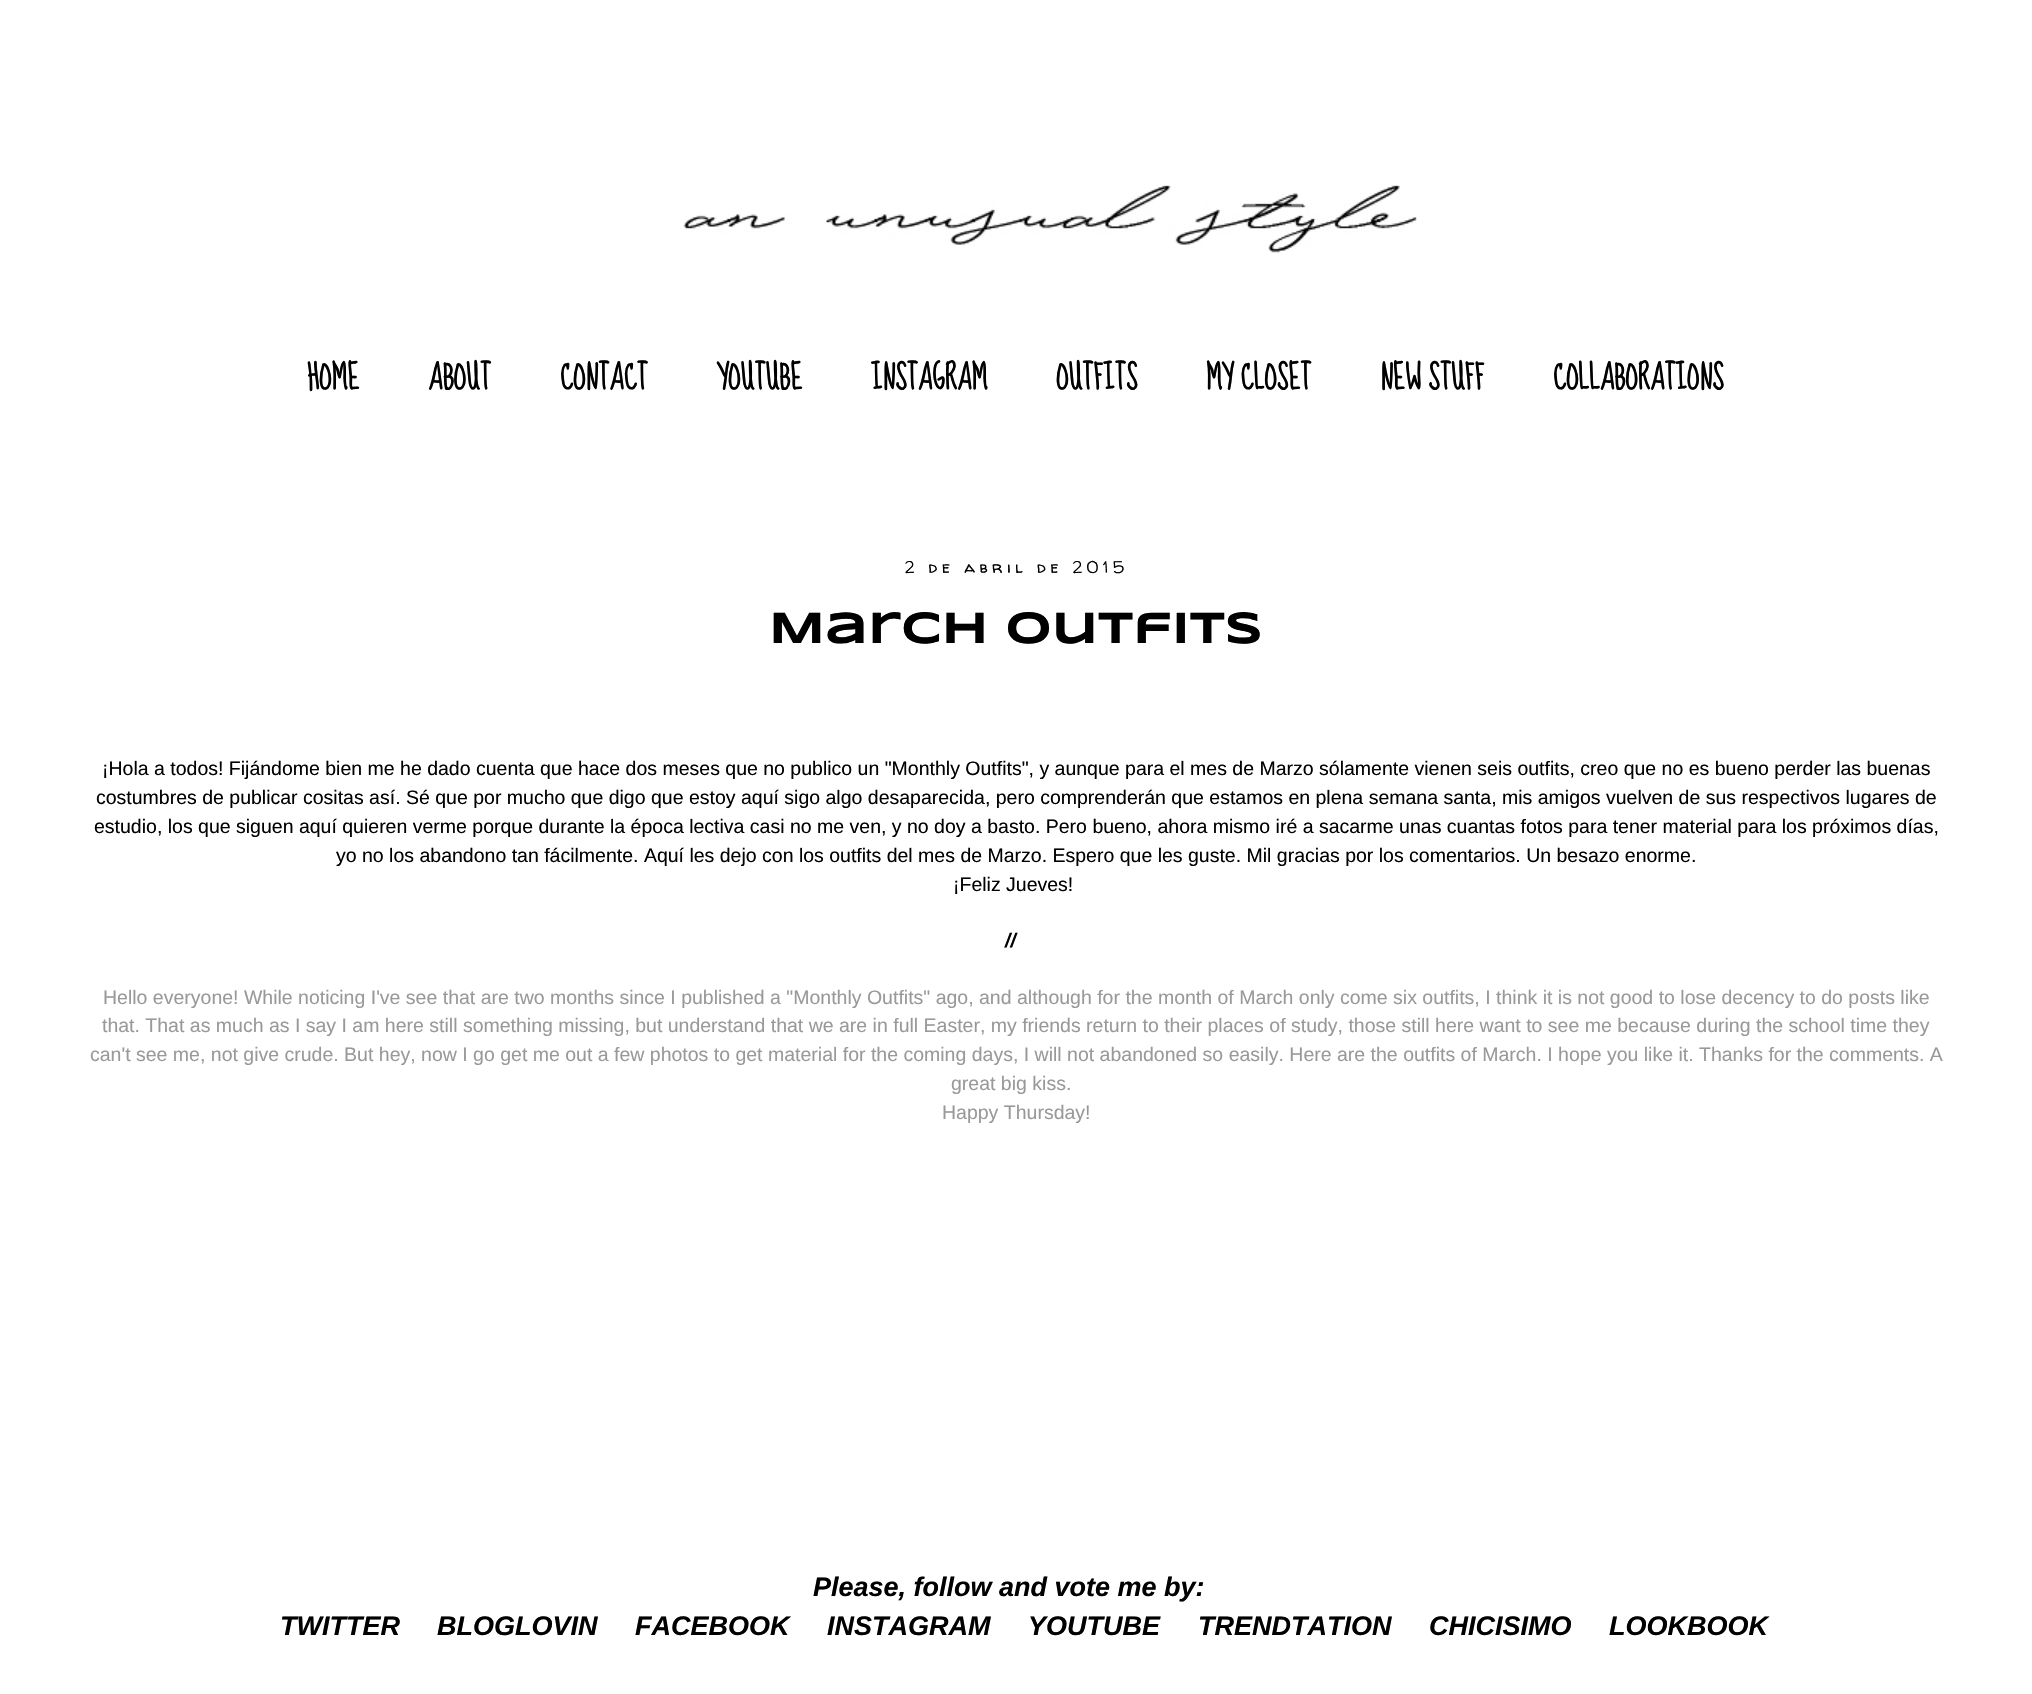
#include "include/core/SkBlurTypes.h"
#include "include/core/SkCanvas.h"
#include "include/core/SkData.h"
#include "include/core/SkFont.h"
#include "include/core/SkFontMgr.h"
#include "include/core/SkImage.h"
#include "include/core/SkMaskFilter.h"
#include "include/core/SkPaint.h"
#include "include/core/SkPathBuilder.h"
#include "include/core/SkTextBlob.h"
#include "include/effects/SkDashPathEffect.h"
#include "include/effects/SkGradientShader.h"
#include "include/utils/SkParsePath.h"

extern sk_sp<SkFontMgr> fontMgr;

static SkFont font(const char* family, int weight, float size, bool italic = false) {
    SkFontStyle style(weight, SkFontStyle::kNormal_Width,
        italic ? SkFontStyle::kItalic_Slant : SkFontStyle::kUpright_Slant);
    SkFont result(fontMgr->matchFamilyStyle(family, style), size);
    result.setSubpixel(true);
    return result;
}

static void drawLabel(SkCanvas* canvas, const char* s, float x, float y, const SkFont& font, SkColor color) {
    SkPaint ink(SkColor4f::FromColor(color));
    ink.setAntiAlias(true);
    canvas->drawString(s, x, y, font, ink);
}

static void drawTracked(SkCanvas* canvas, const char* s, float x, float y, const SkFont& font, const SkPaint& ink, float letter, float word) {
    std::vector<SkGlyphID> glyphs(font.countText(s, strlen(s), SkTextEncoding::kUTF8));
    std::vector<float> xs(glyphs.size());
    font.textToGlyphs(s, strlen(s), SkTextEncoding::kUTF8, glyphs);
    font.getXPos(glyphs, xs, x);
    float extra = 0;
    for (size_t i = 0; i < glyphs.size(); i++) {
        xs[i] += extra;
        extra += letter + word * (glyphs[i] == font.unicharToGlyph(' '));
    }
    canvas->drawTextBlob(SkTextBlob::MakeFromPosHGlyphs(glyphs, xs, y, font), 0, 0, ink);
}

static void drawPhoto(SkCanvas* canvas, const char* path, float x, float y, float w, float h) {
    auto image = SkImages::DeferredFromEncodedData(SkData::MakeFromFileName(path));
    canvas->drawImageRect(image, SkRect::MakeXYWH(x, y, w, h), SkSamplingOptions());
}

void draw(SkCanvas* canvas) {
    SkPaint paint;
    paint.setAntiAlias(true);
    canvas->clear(0xFFFFFFFF);
    drawPhoto(canvas, "assets/img1.png", 683, 185, 734, 68);
    SkFont font1 = font("Sue Ellen Francisco", 700, 30);
    drawLabel(canvas, "HOME", 307, 389, font1, 0xFF000000);
    drawLabel(canvas, "ABOUT", 428, 389, font1, 0xFF000000);
    drawLabel(canvas, "CONTACT", 560, 389, font1, 0xFF000000);
    drawLabel(canvas, "YOUTUBE", 717, 389, font1, 0xFF000000);
    drawLabel(canvas, "INSTAGRAM", 871, 389, font1, 0xFF000000);
    drawLabel(canvas, "OUTFITS", 1056, 389, font1, 0xFF000000);
    drawLabel(canvas, "MY CLOSET", 1206, 389, font1, 0xFF000000);
    drawLabel(canvas, "NEW STUFF", 1380, 389, font1, 0xFF000000);
    drawLabel(canvas, "COLLABORATIONS", 1553, 389, font1, 0xFF000000);
    SkFont font2 = font("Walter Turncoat", 400, 16.5f);
    paint.setColor(0xFF000000);
    drawTracked(canvas, "2 de abril de 2015", 905, 573, font2, paint, 4.5f, 0);
    SkFont font3 = font("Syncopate", 700, 45);
    drawLabel(canvas, "March Outfits", 769, 643, font3, 0xFF000000);
    SkFont font4 = font("Liberation Sans", 400, 19.5f);
    drawLabel(canvas, "¡Hola a todos! Fijándome bien me he dado cuenta que hace dos meses que no publico un \"Monthly Outfits\", y aunque para el mes de Marzo sólamente vienen seis outfits, creo que no es bueno perder las buenas", 102, 775, font4, 0xFF000000);
    drawLabel(canvas, "costumbres de publicar cositas así. Sé que por mucho que digo que estoy aquí sigo algo desaparecida, pero comprenderán que estamos en plena semana santa, mis amigos vuelven de sus respectivos lugares de", 96, 804, font4, 0xFF000000);
    drawLabel(canvas, "estudio, los que siguen aquí quieren verme porque durante la época lectiva casi no me ven, y no doy a basto. Pero bueno, ahora mismo iré a sacarme unas cuantas fotos para tener material para los próximos días,", 94, 833, font4, 0xFF000000);
    drawLabel(canvas, "yo no los abandono tan fácilmente. Aquí les dejo con los outfits del mes de Marzo. Espero que les guste. Mil gracias por los comentarios. Un besazo enorme.", 336, 862, font4, 0xFF000000);
    drawLabel(canvas, "¡Feliz Jueves!", 953, 891, font4, 0xFF000000);
    SkFont font5 = font("Liberation Sans", 700, 19.5f, true);
    drawLabel(canvas, "//", 1005, 947, font5, 0xFF000000);
    drawLabel(canvas, "Hello everyone! While noticing I've see that are two months since I published a \"Monthly Outfits\" ago, and although for the month of March only come six outfits, I think it is not good to lose decency to do posts like", 103, 1004, font4, 0xFF999999);
    drawLabel(canvas, "that. That as much as I say I am here still something missing, but understand that we are in full Easter, my friends return to their places of study, those still here want to see me because during the school time they", 102, 1032, font4, 0xFF999999);
    drawLabel(canvas, "can't see me, not give crude. But hey, now I go get me out a few photos to get material for the coming days, I will not abandoned so easily. Here are the outfits of March. I hope you like it. Thanks for the comments. A", 90, 1061, font4, 0xFF999999);
    drawLabel(canvas, "great big kiss.", 951, 1090, font4, 0xFF999999);
    drawLabel(canvas, "Happy Thursday!", 942, 1119, font4, 0xFF999999);
    SkFont font6 = font("Liberation Sans", 700, 27, true);
    drawLabel(canvas, "Please, follow and vote me by:", 813, 1596, font6, 0xFF000000);
    drawLabel(canvas, "TWITTER", 280, 1635, font6, 0xFF000000);
    drawLabel(canvas, "BLOGLOVIN", 437, 1635, font6, 0xFF000000);
    drawLabel(canvas, "FACEBOOK", 635, 1635, font6, 0xFF000000);
    drawLabel(canvas, "INSTAGRAM", 827, 1635, font6, 0xFF000000);
    drawLabel(canvas, "YOUTUBE", 1028, 1635, font6, 0xFF000000);
    drawLabel(canvas, "TRENDTATION", 1198, 1635, font6, 0xFF000000);
    drawLabel(canvas, "CHICISIMO", 1429, 1635, font6, 0xFF000000);
    drawLabel(canvas, "LOOKBOOK", 1609, 1635, font6, 0xFF000000);
}
